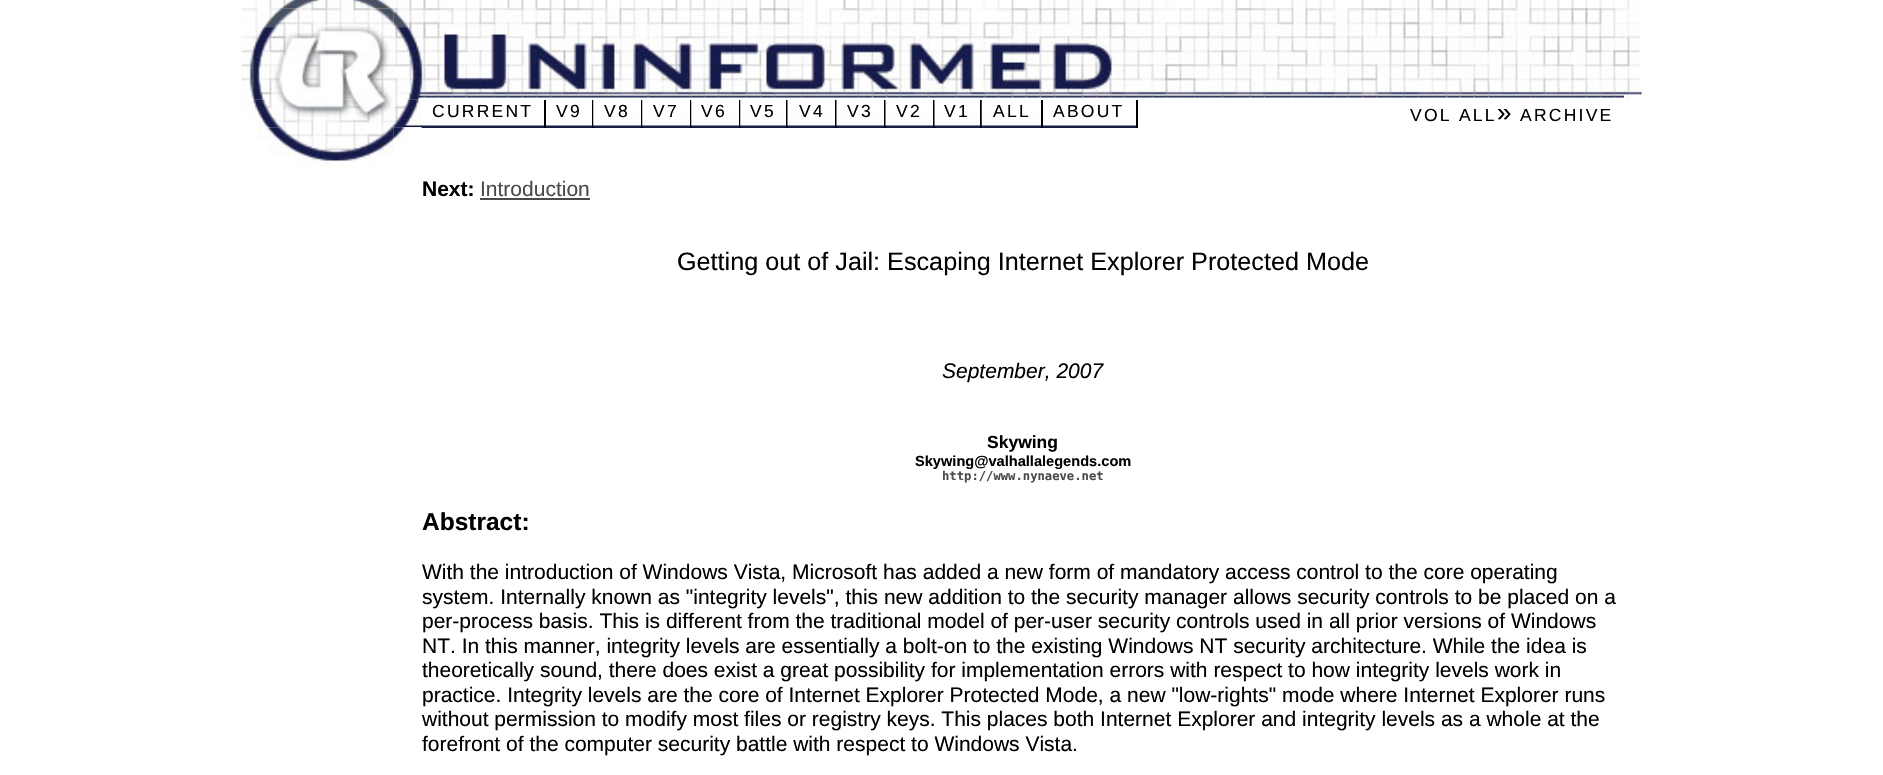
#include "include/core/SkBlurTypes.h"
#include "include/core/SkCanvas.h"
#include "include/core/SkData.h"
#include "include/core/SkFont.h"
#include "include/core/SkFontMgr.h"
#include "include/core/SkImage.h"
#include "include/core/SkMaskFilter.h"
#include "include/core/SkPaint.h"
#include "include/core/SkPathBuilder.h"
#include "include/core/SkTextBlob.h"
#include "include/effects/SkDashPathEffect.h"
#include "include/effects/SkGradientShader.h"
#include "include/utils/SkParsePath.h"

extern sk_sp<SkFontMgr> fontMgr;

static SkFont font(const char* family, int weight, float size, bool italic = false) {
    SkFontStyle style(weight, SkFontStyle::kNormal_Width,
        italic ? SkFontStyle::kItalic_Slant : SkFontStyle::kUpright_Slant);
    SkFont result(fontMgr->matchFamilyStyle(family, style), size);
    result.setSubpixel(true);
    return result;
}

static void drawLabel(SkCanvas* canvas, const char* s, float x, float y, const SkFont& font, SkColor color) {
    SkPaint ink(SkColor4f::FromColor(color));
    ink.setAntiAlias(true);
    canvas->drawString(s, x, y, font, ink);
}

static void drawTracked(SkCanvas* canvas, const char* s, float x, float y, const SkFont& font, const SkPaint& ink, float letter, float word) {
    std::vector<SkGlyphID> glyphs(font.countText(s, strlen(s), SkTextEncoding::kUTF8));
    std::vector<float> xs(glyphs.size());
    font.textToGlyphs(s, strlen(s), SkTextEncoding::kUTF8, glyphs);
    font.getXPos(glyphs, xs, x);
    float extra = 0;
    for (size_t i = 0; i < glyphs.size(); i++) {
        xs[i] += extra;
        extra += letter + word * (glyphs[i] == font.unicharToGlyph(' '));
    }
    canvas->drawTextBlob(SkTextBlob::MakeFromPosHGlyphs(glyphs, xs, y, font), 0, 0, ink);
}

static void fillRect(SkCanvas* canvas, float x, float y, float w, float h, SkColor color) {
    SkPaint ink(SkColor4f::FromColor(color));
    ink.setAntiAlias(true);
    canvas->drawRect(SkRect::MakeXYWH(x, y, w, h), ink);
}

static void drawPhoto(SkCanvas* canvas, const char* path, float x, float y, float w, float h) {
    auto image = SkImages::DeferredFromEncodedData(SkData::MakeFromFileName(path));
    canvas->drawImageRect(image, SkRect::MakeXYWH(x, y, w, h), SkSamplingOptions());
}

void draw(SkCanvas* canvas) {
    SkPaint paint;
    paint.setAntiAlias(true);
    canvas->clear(0xFFFFFFFF);
    drawPhoto(canvas, "assets/img1.png", 255, 0, 139, 9);
    drawPhoto(canvas, "assets/img2.png", 395, 0, 1220, 9);
    drawPhoto(canvas, "assets/img3.png", 1624, 0, 18, 99);
    drawPhoto(canvas, "assets/img4.png", 241, 8, 153, 92);
    drawPhoto(canvas, "assets/img5.png", 393, 8, 1231, 92);
    drawPhoto(canvas, "assets/img6.png", 242, 99, 152, 29);
    drawPhoto(canvas, "assets/img7.png", 258, 127, 136, 37);
    fillRect(canvas, 421, 125, 717, 3, 0xFF191B44);
    drawPhoto(canvas, "assets/img9.png", 421, 125, 123, 1);
    drawPhoto(canvas, "assets/img8.png", 393, 99, 29, 29);
    fillRect(canvas, 544, 100, 2, 28, 0xFF000000);
    SkFont font1 = font("Liberation Sans", 400, 17.5f);
    paint.setColor(0xFF000000);
    drawTracked(canvas, "CURRENT", 432, 117, font1, paint, 2.25f, 0);
    drawPhoto(canvas, "assets/img10.png", 546, 125, 46, 1);
    fillRect(canvas, 592, 100, 2, 28, 0xFF000000);
    drawTracked(canvas, "V9", 556, 117, font1, paint, 2.25f, 0);
    drawPhoto(canvas, "assets/img11.png", 593, 100, 48, 28);
    fillRect(canvas, 641, 100, 2, 28, 0xFF000000);
    drawTracked(canvas, "V8", 604, 117, font1, paint, 2.25f, 0);
    drawPhoto(canvas, "assets/img11.png", 642, 100, 48, 28);
    fillRect(canvas, 690, 100, 2, 28, 0xFF000000);
    drawTracked(canvas, "V7", 653, 117, font1, paint, 2.25f, 0);
    drawPhoto(canvas, "assets/img11.png", 691, 100, 48, 28);
    fillRect(canvas, 739, 100, 2, 28, 0xFF000000);
    drawTracked(canvas, "V6", 701, 117, font1, paint, 2.25f, 0);
    drawPhoto(canvas, "assets/img12.png", 740, 100, 46, 28);
    fillRect(canvas, 786, 100, 2, 28, 0xFF000000);
    drawTracked(canvas, "V5", 750, 117, font1, paint, 2.25f, 0);
    drawPhoto(canvas, "assets/img13.png", 787, 100, 48, 28);
    fillRect(canvas, 835, 100, 2, 28, 0xFF000000);
    drawTracked(canvas, "V4", 799, 117, font1, paint, 2.25f, 0);
    drawPhoto(canvas, "assets/img13.png", 836, 100, 48, 28);
    fillRect(canvas, 884, 100, 2, 28, 0xFF000000);
    drawTracked(canvas, "V3", 847, 117, font1, paint, 2.25f, 0);
    drawPhoto(canvas, "assets/img13.png", 885, 100, 48, 28);
    fillRect(canvas, 933, 100, 2, 28, 0xFF000000);
    drawTracked(canvas, "V2", 896, 117, font1, paint, 2.25f, 0);
    drawPhoto(canvas, "assets/img14.png", 934, 100, 46, 28);
    fillRect(canvas, 980, 100, 2, 28, 0xFF000000);
    drawTracked(canvas, "V1", 944, 117, font1, paint, 2.25f, 0);
    drawPhoto(canvas, "assets/img15.png", 981, 100, 60, 28);
    fillRect(canvas, 1041, 100, 2, 28, 0xFF000000);
    drawTracked(canvas, "ALL", 993, 117, font1, paint, 2.25f, 0);
    drawPhoto(canvas, "assets/img16.png", 1043, 125, 93, 1);
    fillRect(canvas, 1136, 100, 2, 28, 0xFF000000);
    drawTracked(canvas, "ABOUT", 1053, 117, font1, paint, 2.25f, 0);
    drawTracked(canvas, "VOL ALL", 1410, 121, font1, paint, 2.25f, 0);
    SkFont font2 = font("Liberation Sans", 400, 26);
    drawTracked(canvas, "»", 1497, 121, font2, paint, 2.25f, 0);
    drawTracked(canvas, "ARCHIVE", 1520, 121, font1, paint, 2.25f, 0);
    drawPhoto(canvas, "assets/img17.png", 393, 127, 29, 15);
    SkFont font3 = font("Liberation Sans", 700, 21);
    drawLabel(canvas, "Next:", 422, 196, font3, 0xFF000000);
    SkFont font4 = font("Liberation Sans", 400, 21);
    drawLabel(canvas, "Introduction", 480, 196, font4, 0xFF4A4A4C);
    fillRect(canvas, 480, 198, 110, 2, 0xFF4A4A4C);
    SkFont font5 = font("Liberation Sans", 400, 25.2f);
    drawLabel(canvas, "Getting out of Jail: Escaping Internet Explorer Protected Mode", 677, 270, font5, 0xFF000000);
    SkFont font6 = font("Liberation Sans", 400, 21, true);
    drawLabel(canvas, "September, 2007", 942, 378, font6, 0xFF000000);
    SkFont font7 = font("Liberation Sans", 700, 17.5f);
    drawLabel(canvas, "Skywing", 987, 448, font7, 0xFF000000);
    SkFont font8 = font("Liberation Sans", 700, 14.6f);
    drawLabel(canvas, "Skywing@valhallalegends.com", 915, 466, font8, 0xFF000000);
    SkFont font9 = font("DejaVu Sans Mono", 700, 12.2f);
    drawLabel(canvas, "http://www.nynaeve.net", 942, 480, font9, 0xFF4A4A4C);
    SkFont font10 = font("Liberation Sans", 700, 24.5f);
    drawLabel(canvas, "Abstract:", 422, 530, font10, 0xFF000000);
    drawLabel(canvas, "With the introduction of Windows Vista, Microsoft has added a new form of mandatory access control to the core operating", 422, 579, font4, 0xFF000000);
    drawLabel(canvas, "system. Internally known as \"integrity levels\", this new addition to the security manager allows security controls to be placed on a", 422, 604, font4, 0xFF000000);
    drawLabel(canvas, "per-process basis. This is different from the traditional model of per-user security controls used in all prior versions of Windows", 422, 628, font4, 0xFF000000);
    drawLabel(canvas, "NT. In this manner, integrity levels are essentially a bolt-on to the existing Windows NT security architecture. While the idea is", 422, 653, font4, 0xFF000000);
    drawLabel(canvas, "theoretically sound, there does exist a great possibility for implementation errors with respect to how integrity levels work in", 422, 677, font4, 0xFF000000);
    drawLabel(canvas, "practice. Integrity levels are the core of Internet Explorer Protected Mode, a new \"low-rights\" mode where Internet Explorer runs", 422, 702, font4, 0xFF000000);
    drawLabel(canvas, "without permission to modify most files or registry keys. This places both Internet Explorer and integrity levels as a whole at the", 422, 726, font4, 0xFF000000);
    drawLabel(canvas, "forefront of the computer security battle with respect to Windows Vista.", 422, 751, font4, 0xFF000000);
}
